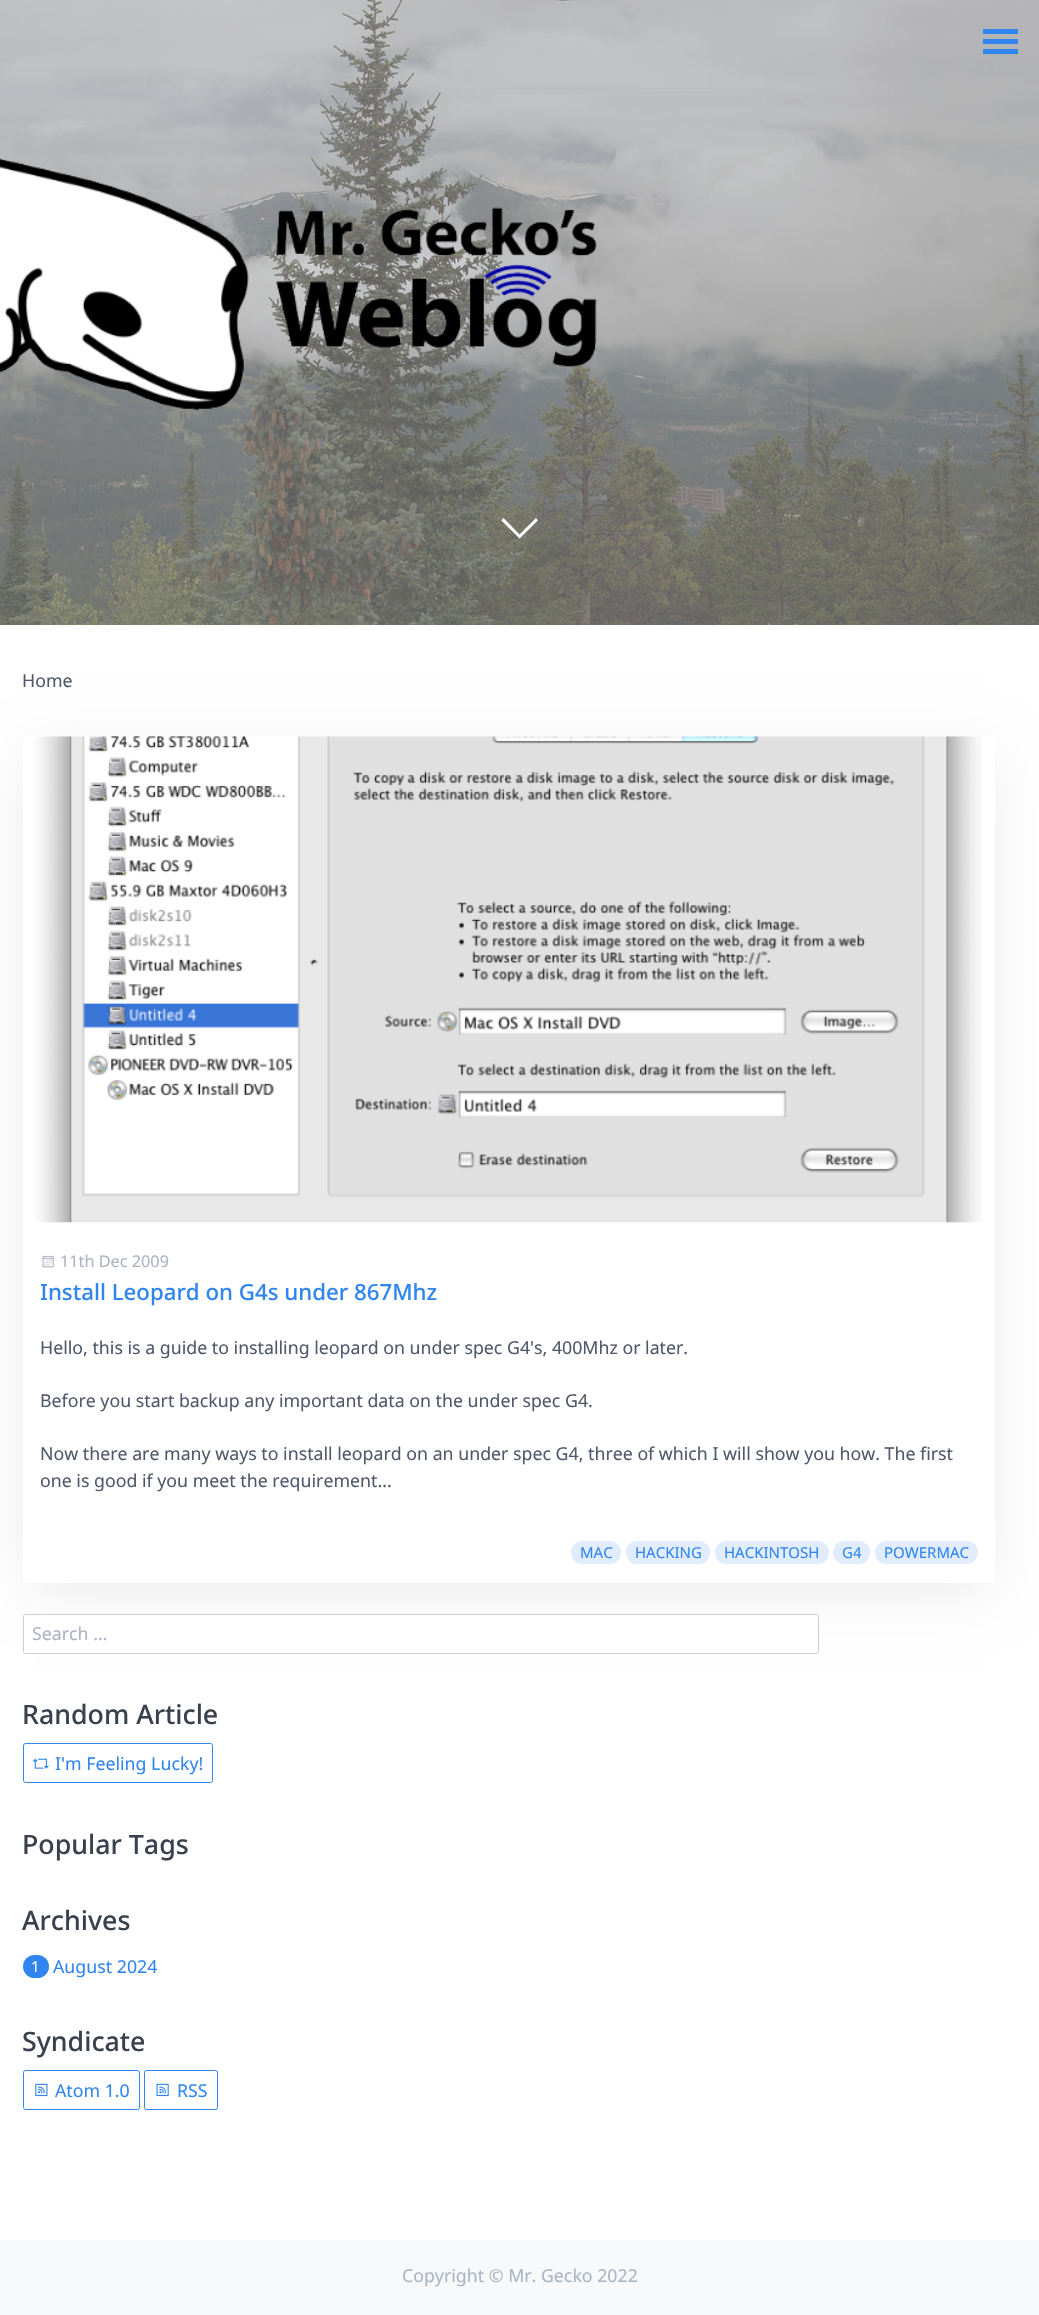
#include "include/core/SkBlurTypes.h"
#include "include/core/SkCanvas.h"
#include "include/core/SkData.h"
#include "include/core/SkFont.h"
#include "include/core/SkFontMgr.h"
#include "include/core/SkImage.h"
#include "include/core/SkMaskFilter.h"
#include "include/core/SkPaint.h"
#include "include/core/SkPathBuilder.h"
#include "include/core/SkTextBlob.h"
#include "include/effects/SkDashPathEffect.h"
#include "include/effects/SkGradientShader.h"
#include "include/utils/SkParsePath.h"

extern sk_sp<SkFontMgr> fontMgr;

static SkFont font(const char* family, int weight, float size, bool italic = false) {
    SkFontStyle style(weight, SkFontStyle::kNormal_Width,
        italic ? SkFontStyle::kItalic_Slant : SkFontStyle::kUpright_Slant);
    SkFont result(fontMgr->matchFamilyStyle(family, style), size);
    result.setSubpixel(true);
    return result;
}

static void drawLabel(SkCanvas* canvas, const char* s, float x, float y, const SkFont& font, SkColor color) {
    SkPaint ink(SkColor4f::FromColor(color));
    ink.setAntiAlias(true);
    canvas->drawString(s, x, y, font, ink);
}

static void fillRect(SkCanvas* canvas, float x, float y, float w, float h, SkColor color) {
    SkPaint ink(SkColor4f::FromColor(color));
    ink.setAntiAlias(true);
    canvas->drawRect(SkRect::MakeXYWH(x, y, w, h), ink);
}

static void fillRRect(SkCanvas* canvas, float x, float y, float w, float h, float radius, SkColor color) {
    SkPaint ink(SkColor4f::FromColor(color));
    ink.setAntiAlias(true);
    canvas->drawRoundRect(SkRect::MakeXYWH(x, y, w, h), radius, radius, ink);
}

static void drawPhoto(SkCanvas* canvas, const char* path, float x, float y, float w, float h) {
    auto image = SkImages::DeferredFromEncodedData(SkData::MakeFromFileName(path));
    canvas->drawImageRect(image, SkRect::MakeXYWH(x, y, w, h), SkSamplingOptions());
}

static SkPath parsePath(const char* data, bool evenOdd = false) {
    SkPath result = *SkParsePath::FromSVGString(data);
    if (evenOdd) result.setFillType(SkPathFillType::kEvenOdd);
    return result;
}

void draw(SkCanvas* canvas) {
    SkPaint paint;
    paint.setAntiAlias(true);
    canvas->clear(0xFFFFFFFF);
    drawPhoto(canvas, "assets/img1.png", 0, 0, 1039, 625);
    drawPhoto(canvas, "assets/img2.png", 0, 158, 597, 253);
    paint.setColor(0xFFFFFFFF);
    canvas->drawPath(parsePath("M503.5 518L519.5 534.5L536 518L538 520.5L519.5 538.5L501.5 520.5Z"), paint);
    fillRect(canvas, 983, 29, 35, 5, 0xFF3085EE);
    fillRect(canvas, 983, 39, 35, 5, 0xFF3085EE);
    fillRect(canvas, 983, 49, 35, 5, 0xFF3085EE);
    fillRect(canvas, 0, 88, 870, 1, 0x33ACB3C2);
    SkFont font1 = font("Noto Sans", 400, 17.75f);
    drawLabel(canvas, "Home", 22, 687, font1, 0xFF50596C);
    paint.setColor(0x1A000000);
    paint.setMaskFilter(SkMaskFilter::MakeBlur(kNormal_SkBlurStyle, 28));
    canvas->drawRect(SkRect::MakeXYWH(34, 760, 950, 824), paint);
    paint.setMaskFilter(nullptr);
    fillRRect(canvas, 23, 736, 972, 847, 2.5f, 0xFFFFFFFF);
    drawPhoto(canvas, "assets/img3.png", 35, 736, 947, 487);
    drawPhoto(canvas, "assets/img4.png", 42, 1255, 12, 13);
    SkFont font2 = font("Noto Sans", 400, 16.25f);
    drawLabel(canvas, "11th Dec 2009", 60, 1267, font2, 0xFFACB3C2);
    SkFont font3 = font("Noto Sans", 500, 22.25f);
    drawLabel(canvas, "Install Leopard on G4s under 867Mhz", 40, 1300, font3, 0xFF3085EE);
    drawLabel(canvas, "Hello, this is a guide to installing leopard on under spec G4's, 400Mhz or later.", 40, 1354, font1, 0xFF50596C);
    drawLabel(canvas, "Before you start backup any important data on the under spec G4.", 40, 1407, font1, 0xFF50596C);
    drawLabel(canvas, "Now there are many ways to install leopard on an under spec G4, three of which I will show you how. The first", 40, 1460, font1, 0xFF50596C);
    drawLabel(canvas, "one is good if you meet the requirement...", 40, 1487, font1, 0xFF50596C);
    fillRRect(canvas, 571, 1541, 50, 23, 11.5f, 0xFFE1EDFD);
    SkFont font4 = font("Noto Sans", 400, 15);
    drawLabel(canvas, "MAC", 580, 1558, font4, 0xFF3085EE);
    fillRRect(canvas, 626, 1541, 84, 23, 11.5f, 0xFFE1EDFD);
    drawLabel(canvas, "HACKING", 635, 1558, font4, 0xFF3085EE);
    fillRRect(canvas, 715, 1541, 114, 23, 11.5f, 0xFFE1EDFD);
    drawLabel(canvas, "HACKINTOSH", 724, 1558, font4, 0xFF3085EE);
    fillRRect(canvas, 833, 1541, 37, 23, 11.5f, 0xFFE1EDFD);
    drawLabel(canvas, "G4", 842, 1558, font4, 0xFF3085EE);
    fillRRect(canvas, 875, 1541, 103, 23, 11.5f, 0xFFE1EDFD);
    drawLabel(canvas, "POWERMAC", 884, 1558, font4, 0xFF3085EE);
    paint.setColor(0xFFFFFFFF);
    canvas->drawRoundRect(SkRect::MakeXYWH(23.5f, 1614.5f, 795, 39), 2, 2, paint);
    paint.setStroke(true);
    paint.setStrokeWidth(1);
    paint.setColor(0xFFCACED7);
    canvas->drawRoundRect(SkRect::MakeXYWH(23.5f, 1614.5f, 795, 39), 2, 2, paint);
    drawLabel(canvas, "Search …", 32, 1640, font1, 0xFFACB3C2);
    SkFont font5 = font("Noto Sans", 500, 26.75f);
    drawLabel(canvas, "Random Article", 22, 1724, font5, 0xFF3A414E);
    paint.setColor(0xFF3085EE);
    canvas->drawRoundRect(SkRect::MakeXYWH(23.5f, 1743.5f, 189, 39), 2, 2, paint);
    drawPhoto(canvas, "assets/img5.png", 32, 1758, 17, 11);
    drawLabel(canvas, "I'm Feeling Lucky!", 55, 1770, font1, 0xFF3085EE);
    drawLabel(canvas, "Popular Tags", 22, 1854, font5, 0xFF3A414E);
    drawLabel(canvas, "Archives", 22, 1930, font5, 0xFF3A414E);
    fillRRect(canvas, 23, 1955, 26, 23, 11.5f, 0xFF3085EE);
    drawLabel(canvas, "1", 31, 1972, font4, 0xFFFFFFFF);
    drawLabel(canvas, "August 2024", 53, 1973, font1, 0xFF3085EE);
    drawLabel(canvas, "Syndicate", 22, 2051, font5, 0xFF3A414E);
    canvas->drawRoundRect(SkRect::MakeXYWH(23.5f, 2070.5f, 116, 39), 2, 2, paint);
    drawPhoto(canvas, "assets/img6.png", 35, 2083, 13, 14);
    drawLabel(canvas, "Atom 1.0", 55, 2097, font1, 0xFF3085EE);
    canvas->drawRoundRect(SkRect::MakeXYWH(144.5f, 2070.5f, 73, 39), 2, 2, paint);
    drawPhoto(canvas, "assets/img7.png", 156, 2083, 13, 14);
    drawLabel(canvas, "RSS", 177, 2097, font1, 0xFF3085EE);
    fillRect(canvas, 0, 2240, 1039, 75, 0xFFF8F9FA);
    drawLabel(canvas, "Copyright © Mr. Gecko 2022", 402, 2282, font1, 0xFFACB3C2);
}
